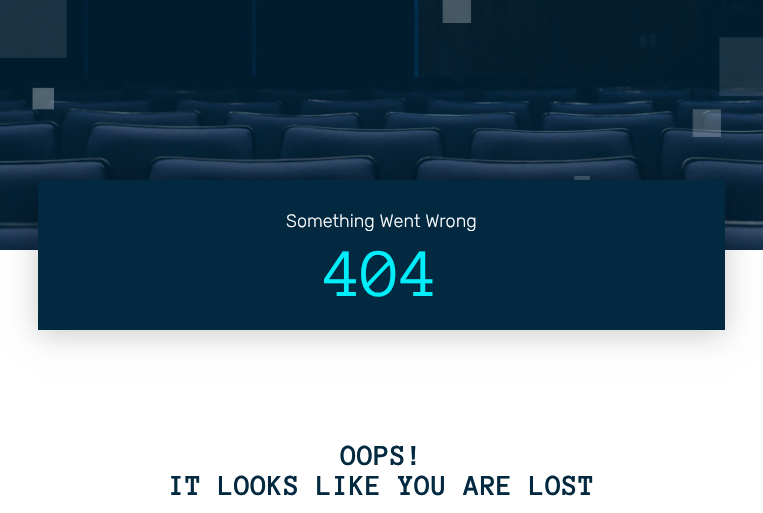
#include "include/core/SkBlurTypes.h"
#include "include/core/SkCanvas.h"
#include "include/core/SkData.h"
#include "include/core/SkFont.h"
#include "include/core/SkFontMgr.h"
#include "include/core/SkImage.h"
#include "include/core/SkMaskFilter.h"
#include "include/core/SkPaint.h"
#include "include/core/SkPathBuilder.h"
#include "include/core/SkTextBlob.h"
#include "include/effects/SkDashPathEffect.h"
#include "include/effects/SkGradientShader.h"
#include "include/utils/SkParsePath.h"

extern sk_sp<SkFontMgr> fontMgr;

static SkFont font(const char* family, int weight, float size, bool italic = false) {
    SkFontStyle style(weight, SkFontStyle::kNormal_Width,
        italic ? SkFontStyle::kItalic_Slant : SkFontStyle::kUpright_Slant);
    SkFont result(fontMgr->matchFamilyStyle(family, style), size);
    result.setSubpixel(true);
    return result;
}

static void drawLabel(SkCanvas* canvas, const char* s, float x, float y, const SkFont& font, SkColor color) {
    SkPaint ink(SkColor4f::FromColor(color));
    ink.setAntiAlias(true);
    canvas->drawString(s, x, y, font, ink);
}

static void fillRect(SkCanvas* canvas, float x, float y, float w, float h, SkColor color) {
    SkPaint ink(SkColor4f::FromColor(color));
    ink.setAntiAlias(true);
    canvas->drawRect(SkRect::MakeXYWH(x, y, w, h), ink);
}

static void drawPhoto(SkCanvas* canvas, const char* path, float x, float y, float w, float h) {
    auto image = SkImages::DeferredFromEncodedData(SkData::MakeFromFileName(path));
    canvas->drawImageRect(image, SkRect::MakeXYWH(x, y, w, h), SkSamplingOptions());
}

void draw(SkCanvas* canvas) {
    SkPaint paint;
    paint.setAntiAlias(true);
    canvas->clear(0xFFFFFFFF);
    drawPhoto(canvas, "assets/img1.png", 0, 0, 763, 250);
    drawPhoto(canvas, "assets/img2.png", 0, 0, 763, 180);
    paint.setColor(0x33000000);
    paint.setMaskFilter(SkMaskFilter::MakeBlur(kNormal_SkBlurStyle, 15));
    canvas->drawRect(SkRect::MakeXYWH(38, 185, 687, 150), paint);
    paint.setMaskFilter(nullptr);
    fillRect(canvas, 38, 180, 687, 150, 0xFF022940);
    SkFont font1 = font("Rubik", 300, 18);
    drawLabel(canvas, "Something Went Wrong", 286, 227, font1, 0xFFFFFFFF);
    SkFont font2 = font("Anonymous Pro", 400, 70);
    drawLabel(canvas, "404", 324, 296, font2, 0xFF00EDF9);
    SkFont font3 = font("Anonymous Pro", 700, 30);
    drawLabel(canvas, "OOPS!", 341, 465, font3, 0xFF022940);
    drawLabel(canvas, "IT LOOKS LIKE YOU ARE LOST", 169, 495, font3, 0xFF022940);
}
